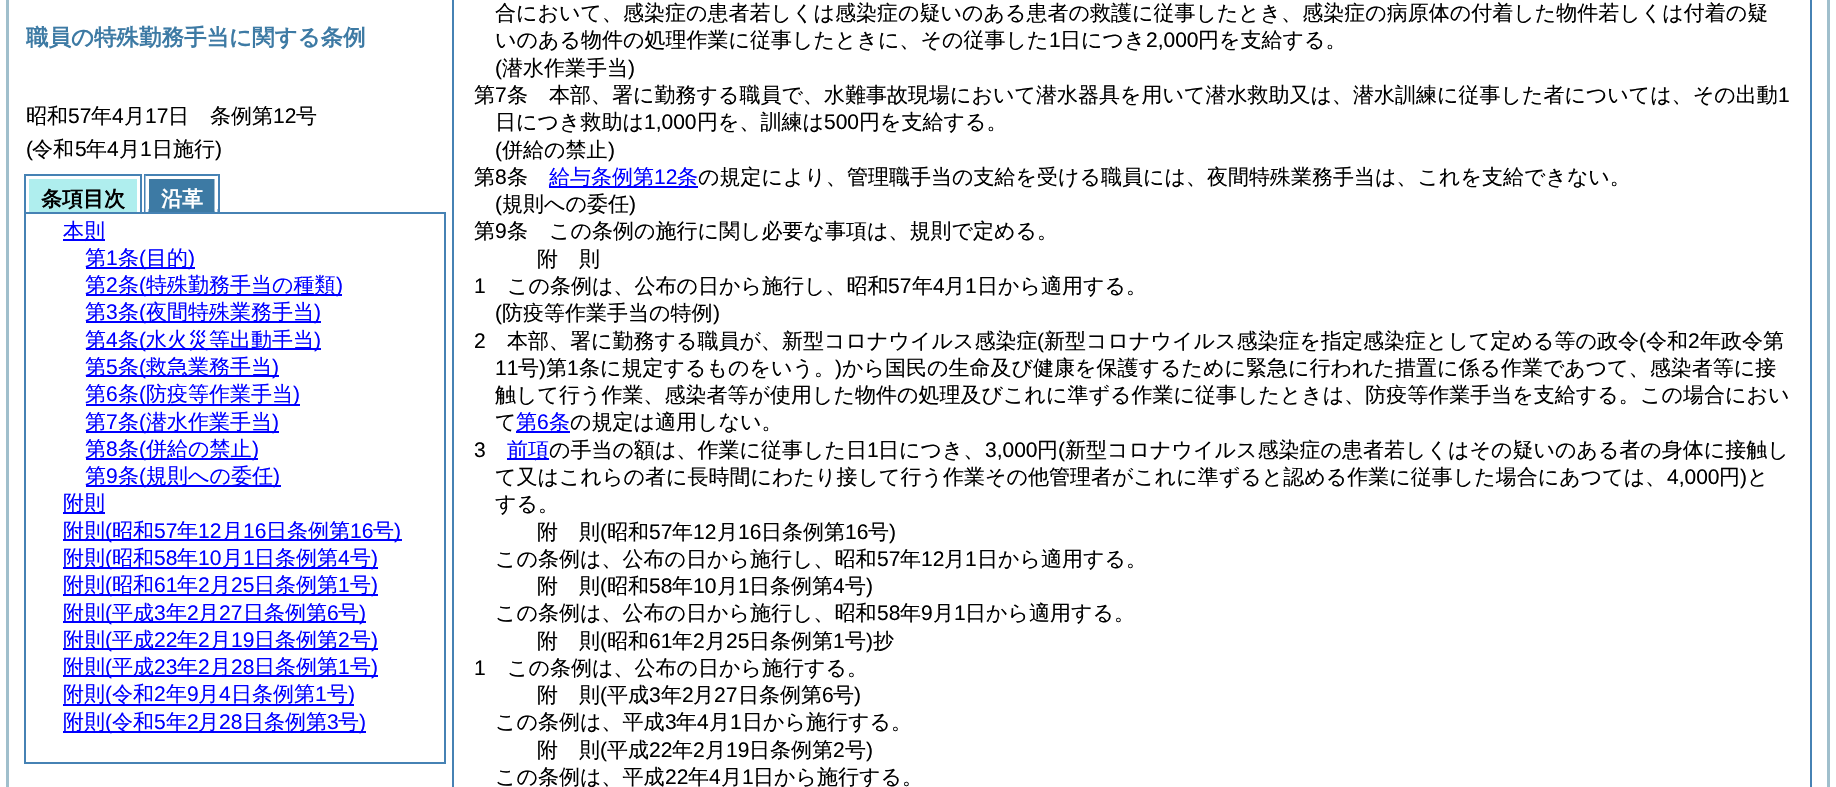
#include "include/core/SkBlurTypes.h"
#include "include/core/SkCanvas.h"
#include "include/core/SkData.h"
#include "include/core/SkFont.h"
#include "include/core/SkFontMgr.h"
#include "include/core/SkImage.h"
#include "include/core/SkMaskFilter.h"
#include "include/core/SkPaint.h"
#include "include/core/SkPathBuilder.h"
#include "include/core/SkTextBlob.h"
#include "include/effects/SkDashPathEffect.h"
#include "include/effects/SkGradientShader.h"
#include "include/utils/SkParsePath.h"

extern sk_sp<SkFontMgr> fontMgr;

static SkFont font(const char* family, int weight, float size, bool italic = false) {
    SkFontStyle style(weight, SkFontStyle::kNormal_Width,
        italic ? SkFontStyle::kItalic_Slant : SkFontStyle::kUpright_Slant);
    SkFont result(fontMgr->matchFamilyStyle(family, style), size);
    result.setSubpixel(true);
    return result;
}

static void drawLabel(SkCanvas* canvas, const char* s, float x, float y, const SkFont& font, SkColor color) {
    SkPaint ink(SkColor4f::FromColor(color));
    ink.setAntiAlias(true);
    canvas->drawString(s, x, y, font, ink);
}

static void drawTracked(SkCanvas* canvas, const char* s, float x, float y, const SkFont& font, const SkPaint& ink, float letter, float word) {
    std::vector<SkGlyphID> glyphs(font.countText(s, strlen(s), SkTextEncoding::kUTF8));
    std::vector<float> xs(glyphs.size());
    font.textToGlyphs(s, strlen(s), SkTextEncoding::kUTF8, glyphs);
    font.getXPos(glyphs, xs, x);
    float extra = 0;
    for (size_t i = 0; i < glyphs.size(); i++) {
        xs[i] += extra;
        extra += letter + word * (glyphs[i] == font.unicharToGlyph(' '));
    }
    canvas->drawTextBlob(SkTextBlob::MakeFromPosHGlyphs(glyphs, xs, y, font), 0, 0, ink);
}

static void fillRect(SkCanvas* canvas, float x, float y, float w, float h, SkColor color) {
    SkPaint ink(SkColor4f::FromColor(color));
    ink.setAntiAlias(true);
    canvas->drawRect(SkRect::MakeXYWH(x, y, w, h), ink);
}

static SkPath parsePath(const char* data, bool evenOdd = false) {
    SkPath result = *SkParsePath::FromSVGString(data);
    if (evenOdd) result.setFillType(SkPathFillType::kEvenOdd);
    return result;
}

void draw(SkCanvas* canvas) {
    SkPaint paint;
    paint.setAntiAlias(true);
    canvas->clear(0xFFFFFFFF);
    paint.setStroke(true);
    paint.setStrokeWidth(3);
    paint.setColor(0xFFA0BFCC);
    canvas->drawRect(SkRect::MakeXYWH(7.5f, -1.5f, 1821, 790), paint);
    SkFont font1 = font("WenQuanYi Zen Hei", 700, 22.5f);
    drawLabel(canvas, "職員の特殊勤務手当に関する条例", 26, 45, font1, 0xFF3D7AA4);
    SkFont font2 = font("WenQuanYi Zen Hei", 500, 21);
    drawLabel(canvas, "昭和", 26, 123, font2, 0xFF000000);
    SkFont font3 = font("Liberation Sans", 400, 21);
    drawLabel(canvas, "57", 68, 123, font3, 0xFF000000);
    drawLabel(canvas, "年", 91, 123, font2, 0xFF000000);
    drawLabel(canvas, "4", 112, 123, font3, 0xFF000000);
    drawLabel(canvas, "月", 124, 123, font2, 0xFF000000);
    drawLabel(canvas, "17", 145, 123, font3, 0xFF000000);
    drawLabel(canvas, "日　条例第", 168, 123, font2, 0xFF000000);
    drawLabel(canvas, "12", 273, 123, font3, 0xFF000000);
    drawLabel(canvas, "号", 296, 123, font2, 0xFF000000);
    drawLabel(canvas, "(", 26, 156, font3, 0xFF000000);
    drawLabel(canvas, "令和", 32, 156, font2, 0xFF000000);
    drawLabel(canvas, "5", 75, 156, font3, 0xFF000000);
    drawLabel(canvas, "年", 86, 156, font2, 0xFF000000);
    drawLabel(canvas, "4", 107, 156, font3, 0xFF000000);
    drawLabel(canvas, "月", 119, 156, font2, 0xFF000000);
    drawLabel(canvas, "1", 140, 156, font3, 0xFF000000);
    drawLabel(canvas, "日施行", 152, 156, font2, 0xFF000000);
    drawLabel(canvas, ")", 215, 156, font3, 0xFF000000);
    fillRect(canvas, 24, 174, 117, 2, 0xFF4682B4);
    fillRect(canvas, 140, 174, 2, 39, 0xFF4682B4);
    fillRect(canvas, 24, 174, 2, 39, 0xFF4682B4);
    fillRect(canvas, 29, 179, 108, 33, 0xFFAFEEEE);
    SkFont font4 = font("WenQuanYi Zen Hei", 700, 21);
    drawLabel(canvas, "条項目次", 41, 206, font4, 0xFF000000);
    fillRect(canvas, 144, 174, 75, 2, 0xFF4682B4);
    fillRect(canvas, 218, 174, 2, 39, 0xFF4682B4);
    fillRect(canvas, 144, 209, 75, 3, 0xFF4682B4);
    fillRect(canvas, 144, 174, 2, 39, 0xFF4682B4);
    fillRect(canvas, 149, 179, 66, 33, 0xFF3D7AA4);
    paint.setStroke(false);
    paint.setColor(0xFFFFFFFF);
    canvas->drawPath(parsePath("M217.5 175.5V213L214.5 211.5V178.5Z"), paint);
    canvas->drawPath(parsePath("M145.5 213V175.5L148.5 178.5V211.5Z"), paint);
    drawLabel(canvas, "沿革", 161, 206, font4, 0xFFFFFFFF);
    paint.setStroke(true);
    paint.setStrokeWidth(2);
    paint.setColor(0xFF4682B4);
    canvas->drawRect(SkRect::MakeXYWH(25, 213, 420, 550), paint);
    fillRect(canvas, 63, 239, 42, 2, 0xFF0000FF);
    drawLabel(canvas, "本則", 63, 238, font2, 0xFF0000FF);
    fillRect(canvas, 86, 267, 109, 2, 0xFF0000FF);
    drawLabel(canvas, "第", 85, 265, font2, 0xFF0000FF);
    drawLabel(canvas, "1", 106, 265, font3, 0xFF0000FF);
    drawLabel(canvas, "条", 118, 265, font2, 0xFF0000FF);
    drawLabel(canvas, "(", 139, 265, font3, 0xFF0000FF);
    drawLabel(canvas, "目的", 146, 265, font2, 0xFF0000FF);
    drawLabel(canvas, ")", 188, 265, font3, 0xFF0000FF);
    fillRect(canvas, 86, 294, 256, 2, 0xFF0000FF);
    drawLabel(canvas, "第", 85, 292, font2, 0xFF0000FF);
    drawLabel(canvas, "2", 106, 292, font3, 0xFF0000FF);
    drawLabel(canvas, "条", 118, 292, font2, 0xFF0000FF);
    drawLabel(canvas, "(", 139, 292, font3, 0xFF0000FF);
    drawLabel(canvas, "特殊勤務手当の種類", 146, 292, font2, 0xFF0000FF);
    drawLabel(canvas, ")", 336, 292, font3, 0xFF0000FF);
    fillRect(canvas, 86, 321, 235, 2, 0xFF0000FF);
    drawLabel(canvas, "第", 85, 319, font2, 0xFF0000FF);
    drawLabel(canvas, "3", 106, 319, font3, 0xFF0000FF);
    drawLabel(canvas, "条", 118, 319, font2, 0xFF0000FF);
    drawLabel(canvas, "(", 139, 319, font3, 0xFF0000FF);
    drawLabel(canvas, "夜間特殊業務手当", 146, 319, font2, 0xFF0000FF);
    drawLabel(canvas, ")", 314, 319, font3, 0xFF0000FF);
    fillRect(canvas, 86, 348, 235, 2, 0xFF0000FF);
    drawLabel(canvas, "第", 85, 347, font2, 0xFF0000FF);
    drawLabel(canvas, "4", 106, 347, font3, 0xFF0000FF);
    drawLabel(canvas, "条", 118, 347, font2, 0xFF0000FF);
    drawLabel(canvas, "(", 139, 347, font3, 0xFF0000FF);
    drawLabel(canvas, "水火災等出動手当", 146, 347, font2, 0xFF0000FF);
    drawLabel(canvas, ")", 314, 347, font3, 0xFF0000FF);
    fillRect(canvas, 86, 375, 193, 2, 0xFF0000FF);
    drawLabel(canvas, "第", 85, 374, font2, 0xFF0000FF);
    drawLabel(canvas, "5", 106, 374, font3, 0xFF0000FF);
    drawLabel(canvas, "条", 118, 374, font2, 0xFF0000FF);
    drawLabel(canvas, "(", 139, 374, font3, 0xFF0000FF);
    drawLabel(canvas, "救急業務手当", 146, 374, font2, 0xFF0000FF);
    drawLabel(canvas, ")", 272, 374, font3, 0xFF0000FF);
    drawLabel(canvas, "第", 85, 401, font2, 0xFF0000FF);
    drawLabel(canvas, "6", 106, 401, font3, 0xFF0000FF);
    drawLabel(canvas, "条", 118, 401, font2, 0xFF0000FF);
    fillRect(canvas, 86, 404, 214, 2, 0xFF0000FF);
    drawLabel(canvas, "(", 139, 401, font3, 0xFF0000FF);
    drawLabel(canvas, "防疫等作業手当", 146, 401, font2, 0xFF0000FF);
    drawLabel(canvas, ")", 293, 401, font3, 0xFF0000FF);
    fillRect(canvas, 86, 431, 193, 2, 0xFF0000FF);
    drawLabel(canvas, "第", 85, 429, font2, 0xFF0000FF);
    drawLabel(canvas, "7", 106, 429, font3, 0xFF0000FF);
    drawLabel(canvas, "条", 118, 429, font2, 0xFF0000FF);
    drawLabel(canvas, "(", 139, 429, font3, 0xFF0000FF);
    drawLabel(canvas, "潜水作業手当", 146, 429, font2, 0xFF0000FF);
    drawLabel(canvas, ")", 272, 429, font3, 0xFF0000FF);
    fillRect(canvas, 86, 458, 172, 2, 0xFF0000FF);
    drawLabel(canvas, "第", 85, 456, font2, 0xFF0000FF);
    drawLabel(canvas, "8", 106, 456, font3, 0xFF0000FF);
    drawLabel(canvas, "条", 118, 456, font2, 0xFF0000FF);
    drawLabel(canvas, "(", 139, 456, font3, 0xFF0000FF);
    drawLabel(canvas, "併給の禁止", 146, 456, font2, 0xFF0000FF);
    drawLabel(canvas, ")", 252, 456, font3, 0xFF0000FF);
    fillRect(canvas, 86, 485, 195, 2, 0xFF0000FF);
    drawLabel(canvas, "第", 85, 483, font2, 0xFF0000FF);
    drawLabel(canvas, "9", 106, 483, font3, 0xFF0000FF);
    drawLabel(canvas, "条", 118, 483, font2, 0xFF0000FF);
    drawLabel(canvas, "(", 139, 483, font3, 0xFF0000FF);
    drawLabel(canvas, "規則への委任", 146, 483, font2, 0xFF0000FF);
    drawLabel(canvas, ")", 273, 483, font3, 0xFF0000FF);
    fillRect(canvas, 63, 512, 42, 2, 0xFF0000FF);
    drawLabel(canvas, "附則", 63, 510, font2, 0xFF0000FF);
    fillRect(canvas, 63, 539, 339, 2, 0xFF0000FF);
    drawLabel(canvas, "附則", 63, 538, font2, 0xFF0000FF);
    drawLabel(canvas, "(", 105, 538, font3, 0xFF0000FF);
    drawLabel(canvas, "昭和", 112, 538, font2, 0xFF0000FF);
    drawLabel(canvas, "57", 154, 538, font3, 0xFF0000FF);
    drawLabel(canvas, "年", 177, 538, font2, 0xFF0000FF);
    drawLabel(canvas, "12", 198, 538, font3, 0xFF0000FF);
    drawLabel(canvas, "月", 222, 538, font2, 0xFF0000FF);
    drawLabel(canvas, "16", 243, 538, font3, 0xFF0000FF);
    drawLabel(canvas, "日条例第", 266, 538, font2, 0xFF0000FF);
    drawLabel(canvas, "16", 350, 538, font3, 0xFF0000FF);
    drawLabel(canvas, "号", 373, 538, font2, 0xFF0000FF);
    drawLabel(canvas, ")", 394, 538, font3, 0xFF0000FF);
    fillRect(canvas, 63, 567, 315, 2, 0xFF0000FF);
    drawLabel(canvas, "附則", 63, 565, font2, 0xFF0000FF);
    drawLabel(canvas, "(", 105, 565, font3, 0xFF0000FF);
    drawLabel(canvas, "昭和", 112, 565, font2, 0xFF0000FF);
    drawLabel(canvas, "58", 154, 565, font3, 0xFF0000FF);
    drawLabel(canvas, "年", 177, 565, font2, 0xFF0000FF);
    drawLabel(canvas, "10", 198, 565, font3, 0xFF0000FF);
    drawLabel(canvas, "月", 222, 565, font2, 0xFF0000FF);
    drawLabel(canvas, "1", 243, 565, font3, 0xFF0000FF);
    drawLabel(canvas, "日条例第", 254, 565, font2, 0xFF0000FF);
    drawLabel(canvas, "4", 338, 565, font3, 0xFF0000FF);
    drawLabel(canvas, "号", 350, 565, font2, 0xFF0000FF);
    drawLabel(canvas, ")", 371, 565, font3, 0xFF0000FF);
    fillRect(canvas, 63, 594, 315, 2, 0xFF0000FF);
    drawLabel(canvas, "附則", 63, 592, font2, 0xFF0000FF);
    drawLabel(canvas, "(", 105, 592, font3, 0xFF0000FF);
    drawLabel(canvas, "昭和", 112, 592, font2, 0xFF0000FF);
    drawLabel(canvas, "61", 154, 592, font3, 0xFF0000FF);
    drawLabel(canvas, "年", 177, 592, font2, 0xFF0000FF);
    drawLabel(canvas, "2", 198, 592, font3, 0xFF0000FF);
    drawLabel(canvas, "月", 210, 592, font2, 0xFF0000FF);
    drawLabel(canvas, "25", 231, 592, font3, 0xFF0000FF);
    drawLabel(canvas, "日条例第", 254, 592, font2, 0xFF0000FF);
    drawLabel(canvas, "1", 338, 592, font3, 0xFF0000FF);
    drawLabel(canvas, "号", 350, 592, font2, 0xFF0000FF);
    drawLabel(canvas, ")", 371, 592, font3, 0xFF0000FF);
    fillRect(canvas, 63, 621, 303, 2, 0xFF0000FF);
    drawLabel(canvas, "附則", 63, 620, font2, 0xFF0000FF);
    drawLabel(canvas, "(", 105, 620, font3, 0xFF0000FF);
    drawLabel(canvas, "平成", 112, 620, font2, 0xFF0000FF);
    drawLabel(canvas, "3", 154, 620, font3, 0xFF0000FF);
    drawLabel(canvas, "年", 166, 620, font2, 0xFF0000FF);
    drawLabel(canvas, "2", 187, 620, font3, 0xFF0000FF);
    drawLabel(canvas, "月", 198, 620, font2, 0xFF0000FF);
    drawLabel(canvas, "27", 219, 620, font3, 0xFF0000FF);
    drawLabel(canvas, "日条例第", 243, 620, font2, 0xFF0000FF);
    drawLabel(canvas, "6", 327, 620, font3, 0xFF0000FF);
    drawLabel(canvas, "号", 338, 620, font2, 0xFF0000FF);
    drawLabel(canvas, ")", 359, 620, font3, 0xFF0000FF);
    fillRect(canvas, 63, 648, 315, 2, 0xFF0000FF);
    drawLabel(canvas, "附則", 63, 647, font2, 0xFF0000FF);
    drawLabel(canvas, "(", 105, 647, font3, 0xFF0000FF);
    drawLabel(canvas, "平成", 112, 647, font2, 0xFF0000FF);
    drawLabel(canvas, "22", 154, 647, font3, 0xFF0000FF);
    drawLabel(canvas, "年", 177, 647, font2, 0xFF0000FF);
    drawLabel(canvas, "2", 198, 647, font3, 0xFF0000FF);
    drawLabel(canvas, "月", 210, 647, font2, 0xFF0000FF);
    drawLabel(canvas, "19", 231, 647, font3, 0xFF0000FF);
    drawLabel(canvas, "日条例第", 254, 647, font2, 0xFF0000FF);
    drawLabel(canvas, "2", 338, 647, font3, 0xFF0000FF);
    drawLabel(canvas, "号", 350, 647, font2, 0xFF0000FF);
    drawLabel(canvas, ")", 371, 647, font3, 0xFF0000FF);
    fillRect(canvas, 63, 675, 315, 2, 0xFF0000FF);
    drawLabel(canvas, "附則", 63, 674, font2, 0xFF0000FF);
    drawLabel(canvas, "(", 105, 674, font3, 0xFF0000FF);
    drawLabel(canvas, "平成", 112, 674, font2, 0xFF0000FF);
    drawLabel(canvas, "23", 154, 674, font3, 0xFF0000FF);
    drawLabel(canvas, "年", 177, 674, font2, 0xFF0000FF);
    drawLabel(canvas, "2", 198, 674, font3, 0xFF0000FF);
    drawLabel(canvas, "月", 210, 674, font2, 0xFF0000FF);
    drawLabel(canvas, "28", 231, 674, font3, 0xFF0000FF);
    drawLabel(canvas, "日条例第", 254, 674, font2, 0xFF0000FF);
    drawLabel(canvas, "1", 338, 674, font3, 0xFF0000FF);
    drawLabel(canvas, "号", 350, 674, font2, 0xFF0000FF);
    drawLabel(canvas, ")", 371, 674, font3, 0xFF0000FF);
    fillRect(canvas, 63, 704, 291, 2, 0xFF0000FF);
    drawLabel(canvas, "附則", 63, 701, font2, 0xFF0000FF);
    drawLabel(canvas, "(", 105, 701, font3, 0xFF0000FF);
    drawLabel(canvas, "令和", 112, 701, font2, 0xFF0000FF);
    drawLabel(canvas, "2", 154, 701, font3, 0xFF0000FF);
    drawLabel(canvas, "年", 166, 701, font2, 0xFF0000FF);
    drawLabel(canvas, "9", 187, 701, font3, 0xFF0000FF);
    drawLabel(canvas, "月", 198, 701, font2, 0xFF0000FF);
    drawLabel(canvas, "4", 219, 701, font3, 0xFF0000FF);
    drawLabel(canvas, "日条例第", 231, 701, font2, 0xFF0000FF);
    drawLabel(canvas, "1", 315, 701, font3, 0xFF0000FF);
    drawLabel(canvas, "号", 327, 701, font2, 0xFF0000FF);
    drawLabel(canvas, ")", 348, 701, font3, 0xFF0000FF);
    fillRect(canvas, 63, 731, 303, 2, 0xFF0000FF);
    drawLabel(canvas, "附則", 63, 729, font2, 0xFF0000FF);
    drawLabel(canvas, "(", 105, 729, font3, 0xFF0000FF);
    drawLabel(canvas, "令和", 112, 729, font2, 0xFF0000FF);
    drawLabel(canvas, "5", 154, 729, font3, 0xFF0000FF);
    drawLabel(canvas, "年", 166, 729, font2, 0xFF0000FF);
    drawLabel(canvas, "2", 187, 729, font3, 0xFF0000FF);
    drawLabel(canvas, "月", 198, 729, font2, 0xFF0000FF);
    drawLabel(canvas, "28", 219, 729, font3, 0xFF0000FF);
    drawLabel(canvas, "日条例第", 243, 729, font2, 0xFF0000FF);
    drawLabel(canvas, "3", 327, 729, font3, 0xFF0000FF);
    drawLabel(canvas, "号", 338, 729, font2, 0xFF0000FF);
    drawLabel(canvas, ")", 359, 729, font3, 0xFF0000FF);
    canvas->drawRect(SkRect::MakeXYWH(453, -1, 1358, 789), paint);
    drawLabel(canvas, "合において、感染症の患者若しくは感染症の疑いのある患者の救護に従事したとき、感染症の病原体の付着した物件若しくは付着の疑", 495, 20, font2, 0xFF000000);
    drawLabel(canvas, "いのある物件の処理作業に従事したときに、その従事した", 495, 47, font2, 0xFF000000);
    drawLabel(canvas, "1", 1049, 47, font3, 0xFF000000);
    drawLabel(canvas, "日につき", 1060, 47, font2, 0xFF000000);
    drawLabel(canvas, "2,000", 1146, 47, font3, 0xFF000000);
    drawLabel(canvas, "円を支給する。", 1198, 47, font2, 0xFF000000);
    drawLabel(canvas, "(", 495, 75, font3, 0xFF000000);
    drawLabel(canvas, "潜水作業手当", 502, 75, font2, 0xFF000000);
    drawLabel(canvas, ")", 628, 75, font3, 0xFF000000);
    drawLabel(canvas, "第", 474, 102, font2, 0xFF000000);
    drawLabel(canvas, "7", 495, 102, font3, 0xFF000000);
    drawLabel(canvas, "条", 507, 102, font2, 0xFF000000);
    drawLabel(canvas, "本部、署に勤務する職員で、水難事故現場において潜水器具を用いて潜水救助又は、潜水訓練に従事した者については、その出動", 549, 102, font2, 0xFF000000);
    drawLabel(canvas, "1", 1778, 102, font3, 0xFF000000);
    drawLabel(canvas, "日につき救助は", 495, 129, font2, 0xFF000000);
    drawLabel(canvas, "1,000", 644, 129, font3, 0xFF000000);
    drawLabel(canvas, "円を、訓練は", 697, 129, font2, 0xFF000000);
    drawLabel(canvas, "500", 824, 129, font3, 0xFF000000);
    drawLabel(canvas, "円を支給する。", 859, 129, font2, 0xFF000000);
    drawLabel(canvas, "(", 495, 157, font3, 0xFF000000);
    drawLabel(canvas, "併給の禁止", 502, 157, font2, 0xFF000000);
    drawLabel(canvas, ")", 608, 157, font3, 0xFF000000);
    drawLabel(canvas, "第", 474, 184, font2, 0xFF000000);
    drawLabel(canvas, "8", 495, 184, font3, 0xFF000000);
    drawLabel(canvas, "条", 507, 184, font2, 0xFF000000);
    fillRect(canvas, 549, 186, 149, 2, 0xFF0000FF);
    drawLabel(canvas, "給与条例第", 549, 184, font2, 0xFF0000FF);
    drawLabel(canvas, "12", 654, 184, font3, 0xFF0000FF);
    drawLabel(canvas, "条", 677, 184, font2, 0xFF0000FF);
    drawLabel(canvas, "の規定により、管理職手当の支給を受ける職員には、夜間特殊業務手当は、これを支給できない。", 698, 184, font2, 0xFF000000);
    drawLabel(canvas, "(", 495, 211, font3, 0xFF000000);
    drawLabel(canvas, "規則への委任", 502, 211, font2, 0xFF000000);
    drawLabel(canvas, ")", 629, 211, font3, 0xFF000000);
    drawLabel(canvas, "第", 474, 238, font2, 0xFF000000);
    drawLabel(canvas, "9", 495, 238, font3, 0xFF000000);
    drawLabel(canvas, "条", 507, 238, font2, 0xFF000000);
    drawLabel(canvas, "この条例の施行に関し必要な事項は、規則で定める。", 549, 238, font2, 0xFF000000);
    paint.setStroke(false);
    paint.setColor(0xFF000000);
    drawTracked(canvas, "附", 537, 266, font2, paint, 21, 0);
    drawLabel(canvas, "則", 579, 266, font2, 0xFF000000);
    drawLabel(canvas, "1", 474, 293, font3, 0xFF000000);
    drawLabel(canvas, "この条例は、公布の日から施行し、昭和", 507, 293, font2, 0xFF000000);
    drawLabel(canvas, "57", 888, 293, font3, 0xFF000000);
    drawLabel(canvas, "年", 912, 293, font2, 0xFF000000);
    drawLabel(canvas, "4", 933, 293, font3, 0xFF000000);
    drawLabel(canvas, "月", 944, 293, font2, 0xFF000000);
    drawLabel(canvas, "1", 965, 293, font3, 0xFF000000);
    drawLabel(canvas, "日から適用する。", 977, 293, font2, 0xFF000000);
    drawLabel(canvas, "(", 495, 320, font3, 0xFF000000);
    drawLabel(canvas, "防疫等作業手当の特例", 502, 320, font2, 0xFF000000);
    drawLabel(canvas, ")", 713, 320, font3, 0xFF000000);
    drawLabel(canvas, "2", 474, 348, font3, 0xFF000000);
    drawLabel(canvas, "本部、署に勤務する職員が、新型コロナウイルス感染症", 507, 348, font2, 0xFF000000);
    drawLabel(canvas, "(", 1037, 348, font3, 0xFF000000);
    drawLabel(canvas, "新型コロナウイルス感染症を指定感染症として定める等の政令", 1044, 348, font2, 0xFF000000);
    drawLabel(canvas, "(", 1639, 348, font3, 0xFF000000);
    drawLabel(canvas, "令和", 1646, 348, font2, 0xFF000000);
    drawLabel(canvas, "2", 1688, 348, font3, 0xFF000000);
    drawLabel(canvas, "年政令第", 1700, 348, font2, 0xFF000000);
    drawLabel(canvas, "11", 495, 375, font3, 0xFF000000);
    drawLabel(canvas, "号", 518, 375, font2, 0xFF000000);
    drawLabel(canvas, ")", 539, 375, font3, 0xFF000000);
    drawLabel(canvas, "第", 546, 375, font2, 0xFF000000);
    drawLabel(canvas, "1", 567, 375, font3, 0xFF000000);
    drawLabel(canvas, "条に規定するものをいう。", 579, 375, font2, 0xFF000000);
    drawLabel(canvas, ")", 835, 375, font3, 0xFF000000);
    drawLabel(canvas, "から国民の生命及び健康を保護するために緊急に行われた措置に係る作業であつて、感染者等に接", 842, 375, font2, 0xFF000000);
    drawLabel(canvas, "触して行う作業、感染者等が使用した物件の処理及びこれに準ずる作業に従事したときは、防疫等作業手当を支給する。", 495, 402, font2, 0xFF000000);
    drawLabel(canvas, "この場合におい", 1640, 402, font2, 0xFF000000);
    drawLabel(canvas, "て", 495, 429, font2, 0xFF000000);
    fillRect(canvas, 516, 431, 54, 2, 0xFF0000FF);
    drawLabel(canvas, "第", 516, 429, font2, 0xFF0000FF);
    drawLabel(canvas, "6", 537, 429, font3, 0xFF0000FF);
    drawLabel(canvas, "条", 549, 429, font2, 0xFF0000FF);
    drawLabel(canvas, "の規定は適用しない。", 570, 429, font2, 0xFF000000);
    drawLabel(canvas, "3", 474, 457, font3, 0xFF000000);
    fillRect(canvas, 507, 458, 42, 2, 0xFF0000FF);
    drawLabel(canvas, "前項", 507, 457, font2, 0xFF0000FF);
    drawLabel(canvas, "の手当の額は、作業に従事した日", 549, 457, font2, 0xFF000000);
    drawLabel(canvas, "1", 867, 457, font3, 0xFF000000);
    drawLabel(canvas, "日につき、", 878, 457, font2, 0xFF000000);
    drawLabel(canvas, "3,000", 985, 457, font3, 0xFF000000);
    drawLabel(canvas, "円", 1037, 457, font2, 0xFF000000);
    drawLabel(canvas, "(", 1058, 457, font3, 0xFF000000);
    drawLabel(canvas, "新型コロナウイルス感染症の患者若しくはその疑いのある者の身体に接触し", 1065, 457, font2, 0xFF000000);
    drawLabel(canvas, "て又はこれらの者に長時間にわたり接して行う作業その他管理者がこれに準ずると認める作業に従事した場合にあつては、", 495, 484, font2, 0xFF000000);
    drawLabel(canvas, "4,000", 1667, 484, font3, 0xFF000000);
    drawLabel(canvas, "円", 1719, 484, font2, 0xFF000000);
    drawLabel(canvas, ")", 1740, 484, font3, 0xFF000000);
    drawLabel(canvas, "と", 1747, 484, font2, 0xFF000000);
    drawLabel(canvas, "する。", 495, 511, font2, 0xFF000000);
    drawTracked(canvas, "附", 537, 539, font2, paint, 21, 0);
    drawLabel(canvas, "則", 579, 539, font2, 0xFF000000);
    drawLabel(canvas, "(", 600, 539, font3, 0xFF000000);
    drawLabel(canvas, "昭和", 607, 539, font2, 0xFF000000);
    drawLabel(canvas, "57", 649, 539, font3, 0xFF000000);
    drawLabel(canvas, "年", 672, 539, font2, 0xFF000000);
    drawLabel(canvas, "12", 693, 539, font3, 0xFF000000);
    drawLabel(canvas, "月", 717, 539, font2, 0xFF000000);
    drawLabel(canvas, "16", 738, 539, font3, 0xFF000000);
    drawLabel(canvas, "日条例第", 761, 539, font2, 0xFF000000);
    drawLabel(canvas, "16", 845, 539, font3, 0xFF000000);
    drawLabel(canvas, "号", 868, 539, font2, 0xFF000000);
    drawLabel(canvas, ")", 889, 539, font3, 0xFF000000);
    drawLabel(canvas, "この条例は、公布の日から施行し、昭和", 495, 566, font2, 0xFF000000);
    drawLabel(canvas, "57", 877, 566, font3, 0xFF000000);
    drawLabel(canvas, "年", 900, 566, font2, 0xFF000000);
    drawLabel(canvas, "12", 921, 566, font3, 0xFF000000);
    drawLabel(canvas, "月", 944, 566, font2, 0xFF000000);
    drawLabel(canvas, "1", 965, 566, font3, 0xFF000000);
    drawLabel(canvas, "日から適用する。", 977, 566, font2, 0xFF000000);
    drawTracked(canvas, "附", 537, 593, font2, paint, 21, 0);
    drawLabel(canvas, "則", 579, 593, font2, 0xFF000000);
    drawLabel(canvas, "(", 600, 593, font3, 0xFF000000);
    drawLabel(canvas, "昭和", 607, 593, font2, 0xFF000000);
    drawLabel(canvas, "58", 649, 593, font3, 0xFF000000);
    drawLabel(canvas, "年", 672, 593, font2, 0xFF000000);
    drawLabel(canvas, "10", 693, 593, font3, 0xFF000000);
    drawLabel(canvas, "月", 717, 593, font2, 0xFF000000);
    drawLabel(canvas, "1", 738, 593, font3, 0xFF000000);
    drawLabel(canvas, "日条例第", 749, 593, font2, 0xFF000000);
    drawLabel(canvas, "4", 833, 593, font3, 0xFF000000);
    drawLabel(canvas, "号", 845, 593, font2, 0xFF000000);
    drawLabel(canvas, ")", 866, 593, font3, 0xFF000000);
    drawLabel(canvas, "この条例は、公布の日から施行し、昭和", 495, 620, font2, 0xFF000000);
    drawLabel(canvas, "58", 877, 620, font3, 0xFF000000);
    drawLabel(canvas, "年", 900, 620, font2, 0xFF000000);
    drawLabel(canvas, "9", 921, 620, font3, 0xFF000000);
    drawLabel(canvas, "月", 933, 620, font2, 0xFF000000);
    drawLabel(canvas, "1", 954, 620, font3, 0xFF000000);
    drawLabel(canvas, "日から適用する。", 965, 620, font2, 0xFF000000);
    drawTracked(canvas, "附", 537, 648, font2, paint, 21, 0);
    drawLabel(canvas, "則", 579, 648, font2, 0xFF000000);
    drawLabel(canvas, "(", 600, 648, font3, 0xFF000000);
    drawLabel(canvas, "昭和", 607, 648, font2, 0xFF000000);
    drawLabel(canvas, "61", 649, 648, font3, 0xFF000000);
    drawLabel(canvas, "年", 672, 648, font2, 0xFF000000);
    drawLabel(canvas, "2", 693, 648, font3, 0xFF000000);
    drawLabel(canvas, "月", 705, 648, font2, 0xFF000000);
    drawLabel(canvas, "25", 726, 648, font3, 0xFF000000);
    drawLabel(canvas, "日条例第", 749, 648, font2, 0xFF000000);
    drawLabel(canvas, "1", 833, 648, font3, 0xFF000000);
    drawLabel(canvas, "号", 845, 648, font2, 0xFF000000);
    drawLabel(canvas, ")", 866, 648, font3, 0xFF000000);
    drawLabel(canvas, "抄", 873, 648, font2, 0xFF000000);
    drawLabel(canvas, "1", 474, 675, font3, 0xFF000000);
    drawLabel(canvas, "この条例は、公布の日から施行する。", 507, 675, font2, 0xFF000000);
    drawTracked(canvas, "附", 537, 702, font2, paint, 21, 0);
    drawLabel(canvas, "則", 579, 702, font2, 0xFF000000);
    drawLabel(canvas, "(", 600, 702, font3, 0xFF000000);
    drawLabel(canvas, "平成", 607, 702, font2, 0xFF000000);
    drawLabel(canvas, "3", 649, 702, font3, 0xFF000000);
    drawLabel(canvas, "年", 661, 702, font2, 0xFF000000);
    drawLabel(canvas, "2", 682, 702, font3, 0xFF000000);
    drawLabel(canvas, "月", 693, 702, font2, 0xFF000000);
    drawLabel(canvas, "27", 714, 702, font3, 0xFF000000);
    drawLabel(canvas, "日条例第", 738, 702, font2, 0xFF000000);
    drawLabel(canvas, "6", 822, 702, font3, 0xFF000000);
    drawLabel(canvas, "号", 833, 702, font2, 0xFF000000);
    drawLabel(canvas, ")", 854, 702, font3, 0xFF000000);
    drawLabel(canvas, "この条例は、平成", 495, 729, font2, 0xFF000000);
    drawLabel(canvas, "3", 665, 729, font3, 0xFF000000);
    drawLabel(canvas, "年", 676, 729, font2, 0xFF000000);
    drawLabel(canvas, "4", 697, 729, font3, 0xFF000000);
    drawLabel(canvas, "月", 709, 729, font2, 0xFF000000);
    drawLabel(canvas, "1", 730, 729, font3, 0xFF000000);
    drawLabel(canvas, "日から施行する。", 742, 729, font2, 0xFF000000);
    drawTracked(canvas, "附", 537, 757, font2, paint, 21, 0);
    drawLabel(canvas, "則", 579, 757, font2, 0xFF000000);
    drawLabel(canvas, "(", 600, 757, font3, 0xFF000000);
    drawLabel(canvas, "平成", 607, 757, font2, 0xFF000000);
    drawLabel(canvas, "22", 649, 757, font3, 0xFF000000);
    drawLabel(canvas, "年", 672, 757, font2, 0xFF000000);
    drawLabel(canvas, "2", 693, 757, font3, 0xFF000000);
    drawLabel(canvas, "月", 705, 757, font2, 0xFF000000);
    drawLabel(canvas, "19", 726, 757, font3, 0xFF000000);
    drawLabel(canvas, "日条例第", 749, 757, font2, 0xFF000000);
    drawLabel(canvas, "2", 833, 757, font3, 0xFF000000);
    drawLabel(canvas, "号", 845, 757, font2, 0xFF000000);
    drawLabel(canvas, ")", 866, 757, font3, 0xFF000000);
    drawLabel(canvas, "この条例は、平成", 495, 784, font2, 0xFF000000);
    drawLabel(canvas, "22", 665, 784, font3, 0xFF000000);
    drawLabel(canvas, "年", 688, 784, font2, 0xFF000000);
    drawLabel(canvas, "4", 709, 784, font3, 0xFF000000);
    drawLabel(canvas, "月", 721, 784, font2, 0xFF000000);
    drawLabel(canvas, "1", 742, 784, font3, 0xFF000000);
    drawLabel(canvas, "日から施行する。", 753, 784, font2, 0xFF000000);
}
